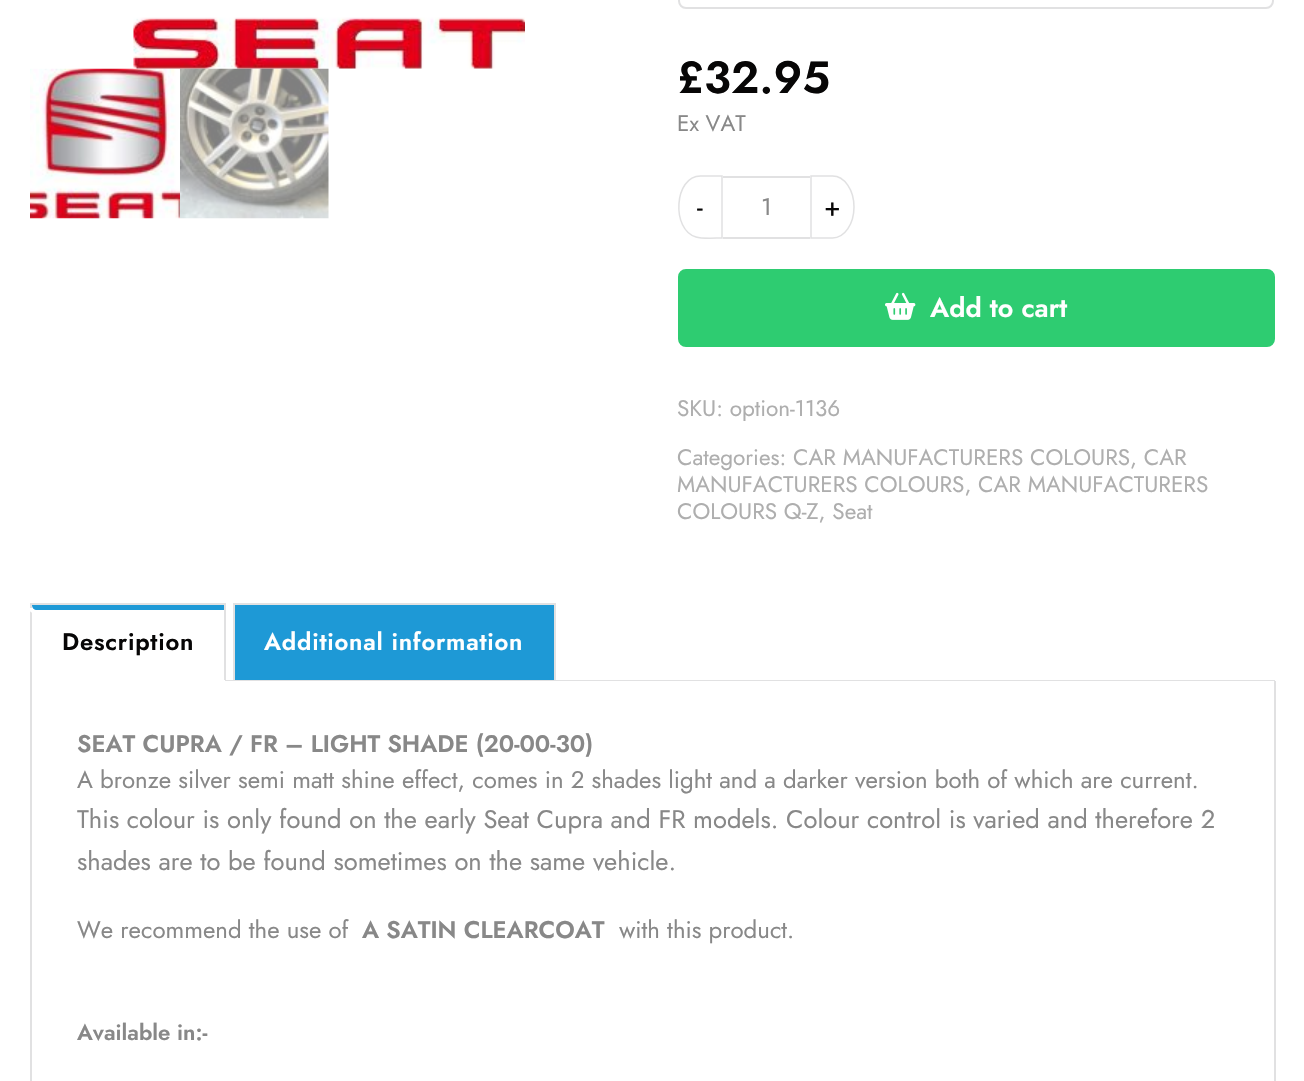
#include "include/core/SkBlurTypes.h"
#include "include/core/SkCanvas.h"
#include "include/core/SkData.h"
#include "include/core/SkFont.h"
#include "include/core/SkFontMgr.h"
#include "include/core/SkImage.h"
#include "include/core/SkMaskFilter.h"
#include "include/core/SkPaint.h"
#include "include/core/SkPathBuilder.h"
#include "include/core/SkTextBlob.h"
#include "include/effects/SkDashPathEffect.h"
#include "include/effects/SkGradientShader.h"
#include "include/utils/SkParsePath.h"

extern sk_sp<SkFontMgr> fontMgr;

static SkFont font(const char* family, int weight, float size, bool italic = false) {
    SkFontStyle style(weight, SkFontStyle::kNormal_Width,
        italic ? SkFontStyle::kItalic_Slant : SkFontStyle::kUpright_Slant);
    SkFont result(fontMgr->matchFamilyStyle(family, style), size);
    result.setSubpixel(true);
    return result;
}

static void drawLabel(SkCanvas* canvas, const char* s, float x, float y, const SkFont& font, SkColor color) {
    SkPaint ink(SkColor4f::FromColor(color));
    ink.setAntiAlias(true);
    canvas->drawString(s, x, y, font, ink);
}

static void drawTracked(SkCanvas* canvas, const char* s, float x, float y, const SkFont& font, const SkPaint& ink, float letter, float word) {
    std::vector<SkGlyphID> glyphs(font.countText(s, strlen(s), SkTextEncoding::kUTF8));
    std::vector<float> xs(glyphs.size());
    font.textToGlyphs(s, strlen(s), SkTextEncoding::kUTF8, glyphs);
    font.getXPos(glyphs, xs, x);
    float extra = 0;
    for (size_t i = 0; i < glyphs.size(); i++) {
        xs[i] += extra;
        extra += letter + word * (glyphs[i] == font.unicharToGlyph(' '));
    }
    canvas->drawTextBlob(SkTextBlob::MakeFromPosHGlyphs(glyphs, xs, y, font), 0, 0, ink);
}

static void fillRect(SkCanvas* canvas, float x, float y, float w, float h, SkColor color) {
    SkPaint ink(SkColor4f::FromColor(color));
    ink.setAntiAlias(true);
    canvas->drawRect(SkRect::MakeXYWH(x, y, w, h), ink);
}

static void drawPhoto(SkCanvas* canvas, const char* path, float x, float y, float w, float h) {
    auto image = SkImages::DeferredFromEncodedData(SkData::MakeFromFileName(path));
    canvas->drawImageRect(image, SkRect::MakeXYWH(x, y, w, h), SkSamplingOptions());
}

static SkPath parsePath(const char* data, bool evenOdd = false) {
    SkPath result = *SkParsePath::FromSVGString(data);
    if (evenOdd) result.setFillType(SkPathFillType::kEvenOdd);
    return result;
}

void draw(SkCanvas* canvas) {
    SkPaint paint;
    paint.setAntiAlias(true);
    canvas->clear(0xFFFFFFFF);
    drawPhoto(canvas, "assets/img2.png", 30, 68, 150, 151);
    drawPhoto(canvas, "assets/img1.png", 133, 17, 392, 52);
    drawPhoto(canvas, "assets/img3.png", 180, 68, 149, 151);
    paint.setStroke(true);
    paint.setStrokeWidth(2);
    paint.setColor(0xFFE1E1E2);
    canvas->drawRoundRect(SkRect::MakeXYWH(679, -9, 594, 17), 7, 7, paint);
    SkFont font1 = font("Jost", 600, 45);
    drawLabel(canvas, "£32.95", 677, 93, font1, 0xFF070606);
    SkFont font2 = font("Jost", 400, 22.5f);
    drawLabel(canvas, "Ex VAT", 677, 131, font2, 0xFF888888);
    paint.setStrokeWidth(1.5f);
    canvas->drawPath(parsePath("M700.5 176H722V238C715.5 238 702 239 696 237C671 230 674 176 700.5 176Z"), paint);
    SkFont font3 = font("Jost", 400, 27);
    drawLabel(canvas, "-", 697, 216, font3, 0xFF070606);
    fillRect(canvas, 723, 176, 87, 2, 0xFFE1E1E2);
    fillRect(canvas, 723, 237, 87, 2, 0xFFE1E1E2);
    SkFont font4 = font("Jost", 400, 24);
    drawLabel(canvas, "1", 761, 215, font4, 0xFF888888);
    canvas->drawPath(parsePath("M811 176H832.5C844.5 176 854 190 854 207C854 224 844.5 238 832.5 238H811Z"), paint);
    drawLabel(canvas, "+", 824, 216, font3, 0xFF070606);
    paint.setStroke(false);
    paint.setColor(0xFF2ECC71);
    canvas->drawRoundRect(SkRect::MakeXYWH(679.5f, 270.5f, 594, 75), 6.5f, 6.5f, paint);
    paint.setStroke(true);
    paint.setStrokeWidth(3);
    canvas->drawRoundRect(SkRect::MakeXYWH(679.5f, 270.5f, 594, 75), 6.5f, 6.5f, paint);
    drawPhoto(canvas, "assets/img4.png", 885, 292, 31, 28);
    SkFont font5 = font("Jost", 600, 27);
    drawLabel(canvas, "Add to cart", 930, 317, font5, 0xFFFFFFFF);
    drawLabel(canvas, "SKU: option-1136", 677, 416, font2, 0xFFAEAEAE);
    drawLabel(canvas, "Categories: CAR MANUFACTURERS COLOURS, CAR", 677, 465, font2, 0xFFAEAEAE);
    drawLabel(canvas, "MANUFACTURERS COLOURS, CAR MANUFACTURERS", 677, 492, font2, 0xFFAEAEAE);
    drawLabel(canvas, "COLOURS Q-Z, Seat", 677, 519, font2, 0xFFAEAEAE);
    fillRect(canvas, 30, 603, 195, 2, 0xFFE1E1E2);
    fillRect(canvas, 224, 603, 2, 78, 0xFFE1E1E2);
    fillRect(canvas, 224, 680, 1, 1, 0xFFFFFFFF);
    fillRect(canvas, 30, 603, 2, 78, 0xFFE1E1E2);
    canvas->save();
    canvas->clipRect(SkRect::MakeXYWH(30, 603, 1245, 78));
    paint.setStroke(false);
    paint.setColor(0xFFFFFFFF);
    canvas->drawPath(parsePath("M29 608C29 611 31 613 34 613H221V609H36L33 608Z"), paint);
    canvas->restore();
    paint.setColor(0xFF1E99D6);
    canvas->drawPath(parsePath("M32 605H224V610H37C34 610 32 608 32 605Z"), paint);
    SkFont font6 = font("Jost", 600, 24);
    paint.setColor(0xFF070606);
    drawTracked(canvas, "Description", 62, 650, font6, paint, 0.75f, 0);
    fillRect(canvas, 235, 605, 319, 75, 0xFF1E99D6);
    fillRect(canvas, 233, 603, 322, 2, 0xFFE1E1E2);
    fillRect(canvas, 554, 603, 2, 78, 0xFFE1E1E2);
    fillRect(canvas, 233, 603, 2, 78, 0xFFE1E1E2);
    paint.setColor(0xFFFFFFFF);
    drawTracked(canvas, "Additional information", 264, 650, font6, paint, 0.75f, 0);
    fillRect(canvas, 226, 680, 1049, 1, 0xFFE1E1E2);
    fillRect(canvas, 1274, 681, 2, 400, 0xFFE1E1E2);
    fillRect(canvas, 30, 681, 2, 400, 0xFFE1E1E2);
    drawLabel(canvas, "SEAT CUPRA / FR – LIGHT SHADE (20-00-30)", 77, 752, font6, 0xFF888888);
    drawLabel(canvas, "A bronze silver semi matt shine effect, comes in 2 shades light and a darker version both of which are current.", 77, 788, font4, 0xFF888888);
    SkFont font7 = font("Jost", 400, 25.5f);
    drawLabel(canvas, "This colour is only found on the early Seat Cupra and FR models. Colour control is varied and therefore 2", 77, 828, font7, 0xFF888888);
    drawLabel(canvas, "shades are to be found sometimes on the same vehicle.", 77, 870, font7, 0xFF888888);
    drawLabel(canvas, "We recommend the use of", 77, 938, font4, 0xFF888888);
    drawLabel(canvas, "A SATIN CLEARCOAT", 362, 938, font6, 0xFF888888);
    drawLabel(canvas, "with this product.", 619, 938, font4, 0xFF888888);
    SkFont font8 = font("Jost", 600, 22.25f);
    drawLabel(canvas, "Available in:-", 77, 1040, font8, 0xFF888888);
}
